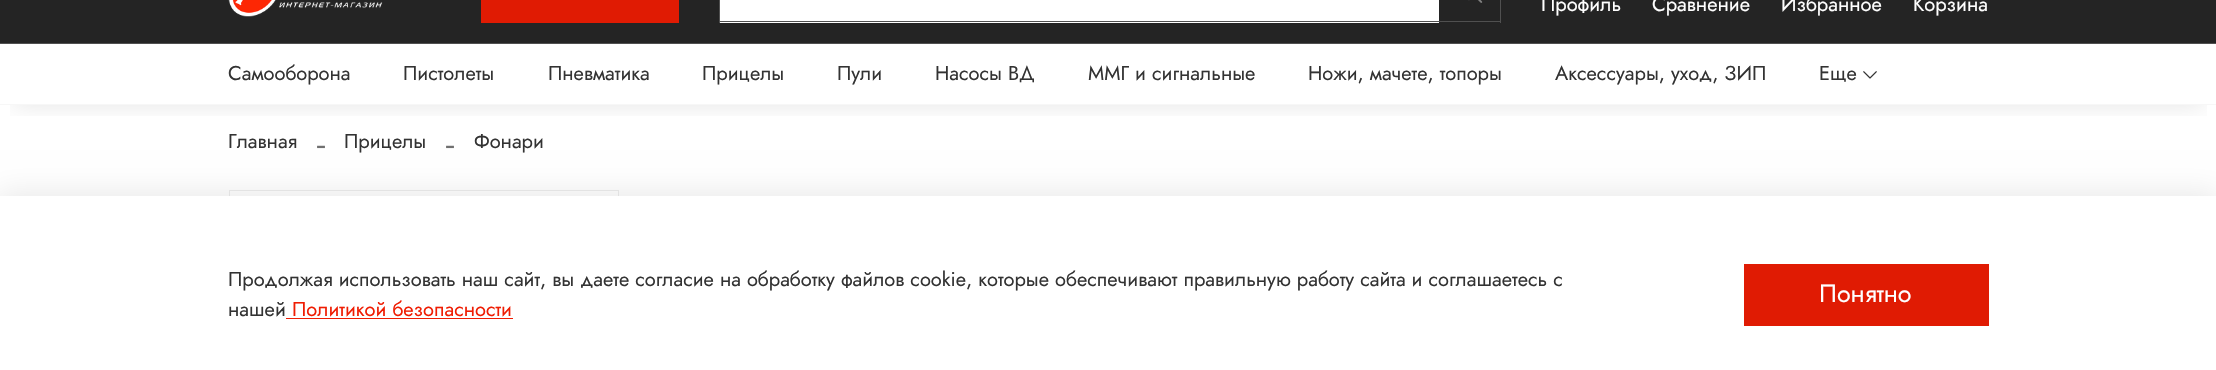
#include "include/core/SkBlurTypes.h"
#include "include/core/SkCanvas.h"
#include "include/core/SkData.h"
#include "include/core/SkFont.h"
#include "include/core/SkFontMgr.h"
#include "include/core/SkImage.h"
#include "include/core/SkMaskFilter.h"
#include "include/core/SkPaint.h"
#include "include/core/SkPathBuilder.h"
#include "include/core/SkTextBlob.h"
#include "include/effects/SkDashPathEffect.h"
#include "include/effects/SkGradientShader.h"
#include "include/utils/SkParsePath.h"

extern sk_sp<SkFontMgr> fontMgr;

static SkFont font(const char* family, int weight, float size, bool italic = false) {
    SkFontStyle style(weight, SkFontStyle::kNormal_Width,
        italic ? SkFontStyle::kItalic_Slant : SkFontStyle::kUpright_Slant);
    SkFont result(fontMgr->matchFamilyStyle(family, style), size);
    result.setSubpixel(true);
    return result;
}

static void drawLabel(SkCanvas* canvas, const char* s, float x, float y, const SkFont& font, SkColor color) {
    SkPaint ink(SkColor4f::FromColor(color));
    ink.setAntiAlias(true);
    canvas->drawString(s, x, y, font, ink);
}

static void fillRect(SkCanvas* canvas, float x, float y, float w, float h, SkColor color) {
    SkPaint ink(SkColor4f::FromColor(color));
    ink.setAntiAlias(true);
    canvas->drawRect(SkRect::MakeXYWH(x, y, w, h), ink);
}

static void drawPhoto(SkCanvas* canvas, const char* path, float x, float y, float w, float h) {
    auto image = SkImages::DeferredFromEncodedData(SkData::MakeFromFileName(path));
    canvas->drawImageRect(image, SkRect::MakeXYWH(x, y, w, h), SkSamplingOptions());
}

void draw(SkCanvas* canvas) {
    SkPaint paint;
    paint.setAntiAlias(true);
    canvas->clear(0xFFFFFFFF);
    fillRect(canvas, 0, 0, 2216, 43, 0xFF242424);
    fillRect(canvas, 0, 43, 2216, 1, 0xFF505050);
    drawPhoto(canvas, "assets/img1.png", 228, 0, 155, 17);
    fillRect(canvas, 481, 0, 198, 23, 0xFFE01B03);
    fillRect(canvas, 720, 0, 719, 23, 0xFFFFFFFF);
    fillRect(canvas, 719, 21, 720, 1, 0xFF505050);
    fillRect(canvas, 719, 0, 1, 23, 0xFF505050);
    fillRect(canvas, 1500, 0, 1, 23, 0xFF505050);
    fillRect(canvas, 1439, 21, 62, 1, 0xFF505050);
    drawPhoto(canvas, "assets/img2.png", 1468, 0, 15, 3);
    SkFont font1 = font("Jost", 400, 20);
    drawLabel(canvas, "Профиль", 1541, 11, font1, 0xFFFFFFFF);
    drawLabel(canvas, "Сравнение", 1652, 11, font1, 0xFFFFFFFF);
    drawLabel(canvas, "Избранное", 1781, 11, font1, 0xFFFFFFFF);
    drawLabel(canvas, "Корзина", 1913, 11, font1, 0xFFFFFFFF);
    canvas->save();
    canvas->clipRect(SkRect::MakeXYWH(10, 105, 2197, 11));
    paint.setColor(0x1A000000);
    paint.setMaskFilter(SkMaskFilter::MakeBlur(kNormal_SkBlurStyle, 12.5f));
    canvas->drawRect(SkRect::MakeXYWH(13, 69, 2191, 36), paint);
    paint.setMaskFilter(nullptr);
    canvas->restore();
    fillRect(canvas, 0, 104, 2216, 1, 0xFFF7F7F7);
    drawLabel(canvas, "Самооборона", 228, 80, font1, 0xFF333333);
    drawLabel(canvas, "Пистолеты", 403, 80, font1, 0xFF333333);
    drawLabel(canvas, "Пневматика", 548, 80, font1, 0xFF333333);
    drawLabel(canvas, "Прицелы", 702, 80, font1, 0xFF333333);
    drawLabel(canvas, "Пули", 837, 80, font1, 0xFF333333);
    drawLabel(canvas, "Насосы ВД", 935, 80, font1, 0xFF333333);
    drawLabel(canvas, "ММГ и сигнальные", 1088, 80, font1, 0xFF333333);
    drawLabel(canvas, "Ножи, мачете, топоры", 1308, 80, font1, 0xFF333333);
    drawLabel(canvas, "Аксессуары, уход, ЗИП", 1555, 80, font1, 0xFF333333);
    drawLabel(canvas, "Еще", 1819, 80, font1, 0xFF333333);
    drawPhoto(canvas, "assets/img3.png", 1863, 71, 14, 8);
    drawLabel(canvas, "Главная", 228, 148, font1, 0xFF333333);
    SkFont font2 = font("Liberation Serif", 400, 30);
    drawLabel(canvas, "-", 316, 154, font2, 0xFF707070);
    drawLabel(canvas, "Прицелы", 344, 148, font1, 0xFF333333);
    drawLabel(canvas, "-", 445, 154, font2, 0xFF707070);
    drawLabel(canvas, "Фонари", 474, 148, font1, 0xFF333333);
    paint.setStroke(true);
    paint.setStrokeWidth(1);
    paint.setColor(0xFFEDEDED);
    canvas->drawRect(SkRect::MakeXYWH(229.5f, 190.5f, 389, 49), paint);
    paint.setStroke(false);
    paint.setColor(0x17000000);
    paint.setMaskFilter(SkMaskFilter::MakeBlur(kNormal_SkBlurStyle, 14.5f));
    canvas->drawRect(SkRect::MakeXYWH(-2, 193, 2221, 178), paint);
    paint.setMaskFilter(nullptr);
    fillRect(canvas, 0, 196, 2216, 174, 0xFFFFFFFF);
    drawLabel(canvas, "Продолжая использовать наш сайт, вы даете согласие на обработку файлов cookie, которые обеспечивают правильную работу сайта и соглашаетесь с", 228, 286, font1, 0xFF333333);
    drawLabel(canvas, "нашей", 228, 316, font1, 0xFF333333);
    drawLabel(canvas, "Политикой безопасности", 292, 316, font1, 0xFFEF1D03);
    fillRect(canvas, 286, 318, 227, 1, 0xFFEF1D03);
    fillRect(canvas, 1744, 264, 245, 62, 0xFFE01B03);
    SkFont font3 = font("Jost", 400, 25);
    drawLabel(canvas, "Понятно", 1819, 302, font3, 0xFFFFFFFF);
}
